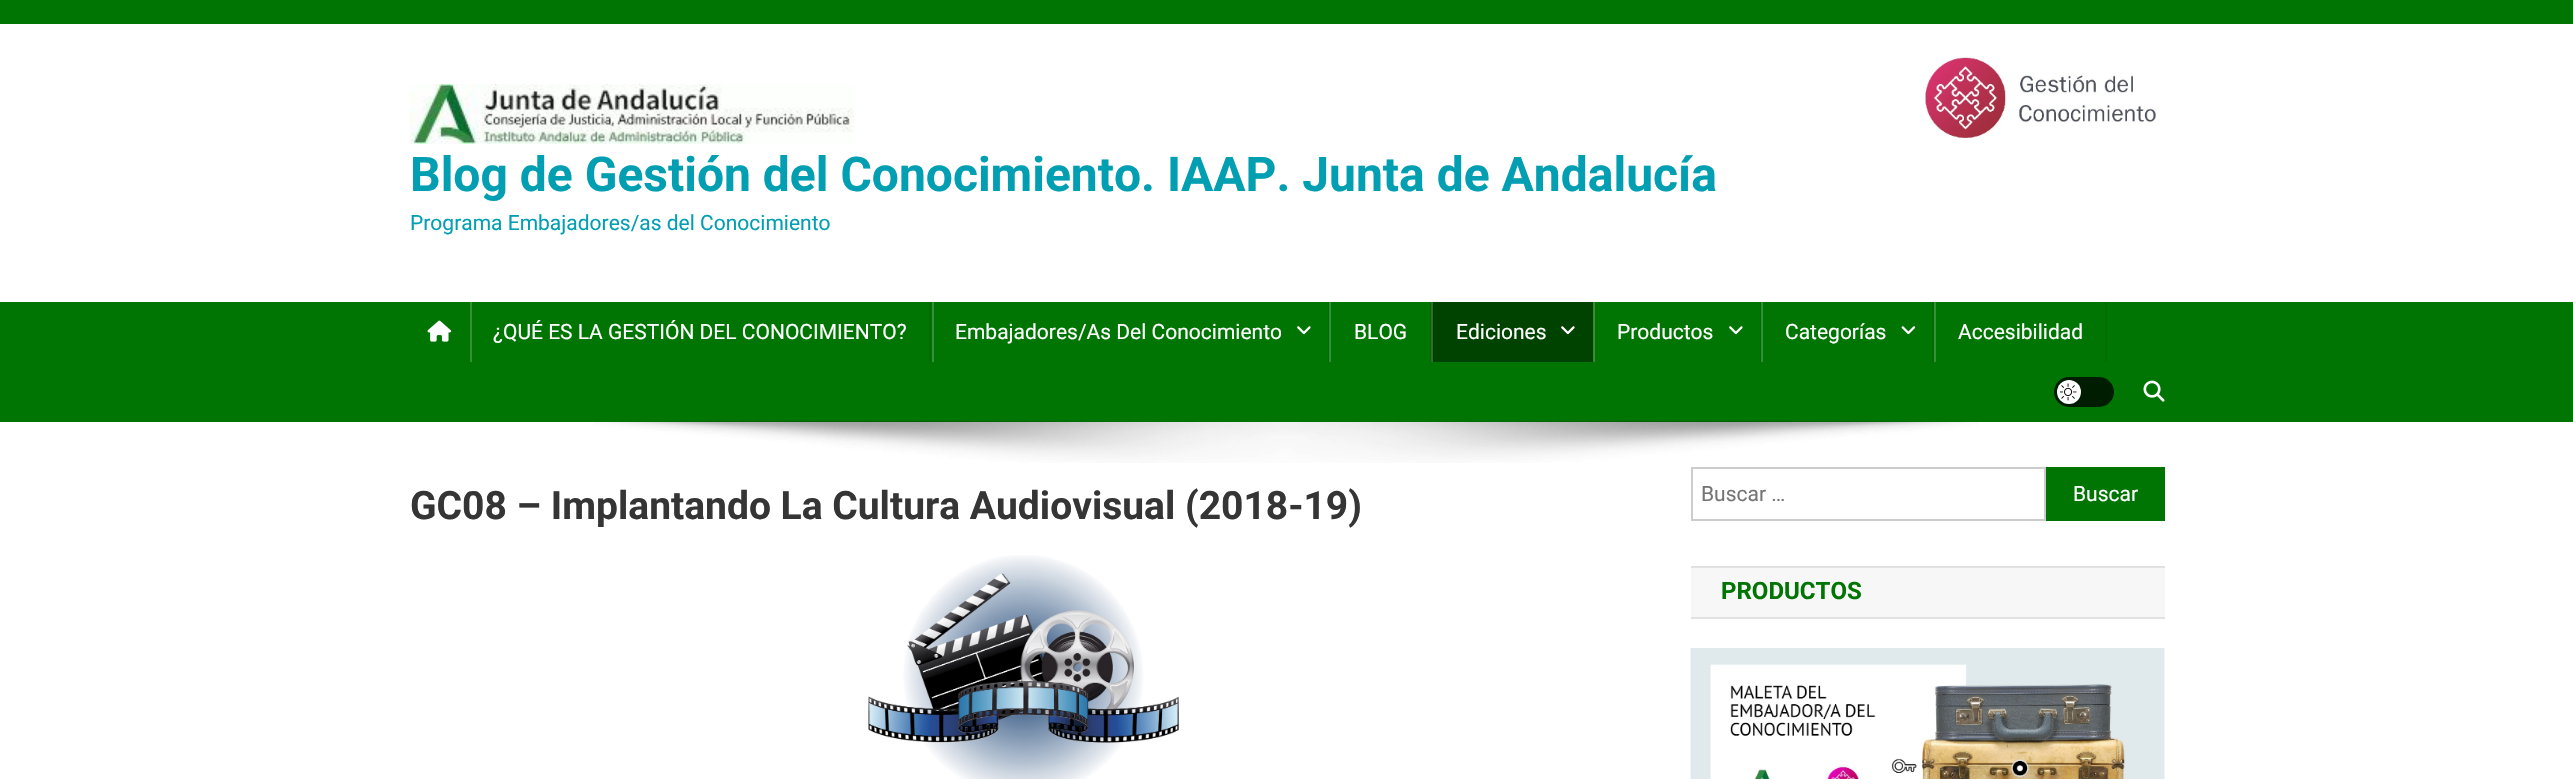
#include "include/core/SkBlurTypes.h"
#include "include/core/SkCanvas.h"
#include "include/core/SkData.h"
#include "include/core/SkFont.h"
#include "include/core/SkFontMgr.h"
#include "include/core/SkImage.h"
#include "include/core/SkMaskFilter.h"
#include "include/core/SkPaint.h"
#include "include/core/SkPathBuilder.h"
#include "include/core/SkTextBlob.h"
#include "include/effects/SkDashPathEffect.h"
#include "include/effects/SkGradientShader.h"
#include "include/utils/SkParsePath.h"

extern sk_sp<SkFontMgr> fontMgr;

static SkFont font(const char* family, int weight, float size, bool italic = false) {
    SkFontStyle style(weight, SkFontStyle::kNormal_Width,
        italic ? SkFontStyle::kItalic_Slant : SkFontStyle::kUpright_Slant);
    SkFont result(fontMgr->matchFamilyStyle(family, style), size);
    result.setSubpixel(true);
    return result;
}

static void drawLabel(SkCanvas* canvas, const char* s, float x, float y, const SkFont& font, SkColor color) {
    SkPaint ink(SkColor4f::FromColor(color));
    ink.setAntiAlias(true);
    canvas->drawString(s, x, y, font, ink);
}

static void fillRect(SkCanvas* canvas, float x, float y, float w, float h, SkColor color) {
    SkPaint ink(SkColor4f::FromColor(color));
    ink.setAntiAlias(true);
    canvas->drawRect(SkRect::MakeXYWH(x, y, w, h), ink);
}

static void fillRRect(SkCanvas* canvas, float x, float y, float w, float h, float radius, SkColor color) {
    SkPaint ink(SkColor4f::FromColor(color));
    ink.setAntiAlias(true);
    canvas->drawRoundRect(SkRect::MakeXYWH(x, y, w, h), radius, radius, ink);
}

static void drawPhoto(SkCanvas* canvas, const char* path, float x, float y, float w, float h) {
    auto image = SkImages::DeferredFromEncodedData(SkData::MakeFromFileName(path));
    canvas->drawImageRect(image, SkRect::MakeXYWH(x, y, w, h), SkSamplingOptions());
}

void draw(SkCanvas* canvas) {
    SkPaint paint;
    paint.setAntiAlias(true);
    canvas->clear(0xFFFFFFFF);
    fillRect(canvas, 0, 0, 2573, 24, 0xFF017503);
    drawPhoto(canvas, "assets/img1.png", 1925, 56, 231, 83);
    drawPhoto(canvas, "assets/img2.png", 409, 84, 445, 60);
    SkFont font1 = font("Roboto", 700, 48);
    drawLabel(canvas, "Blog de Gestión del Conocimiento. IAAP. Junta de Andalucía", 410, 191, font1, 0xFF029FB2);
    SkFont font2 = font("Roboto", 400, 21);
    drawLabel(canvas, "Programa Embajadores/as del Conocimiento", 410, 230, font2, 0xFF029FB2);
    fillRect(canvas, 0, 302, 2573, 120, 0xFF017503);
    fillRect(canvas, 1762, 302, 1, 60, 0xFF349135);
    fillRect(canvas, 1594, 302, 1, 60, 0xFF349135);
    fillRect(canvas, 1593, 302, 1, 60, 0xFF348935);
    fillRect(canvas, 1330, 302, 1, 60, 0xFF349135);
    drawPhoto(canvas, "assets/img3.png", 427, 320, 25, 22);
    fillRect(canvas, 929, 302, 2, 60, 0xFF016C03);
    fillRect(canvas, 470, 302, 2, 60, 0xFF349135);
    drawLabel(canvas, "¿QUÉ ES LA GESTIÓN DEL CONOCIMIENTO?", 493, 339, font2, 0xFFFFFFFF);
    fillRect(canvas, 1328, 302, 1, 60, 0xFF016C03);
    fillRect(canvas, 1329, 302, 1, 60, 0xFF348935);
    fillRect(canvas, 932, 302, 2, 60, 0xFF349135);
    drawLabel(canvas, "Embajadores/As Del Conocimiento", 955, 339, font2, 0xFFFFFFFF);
    drawPhoto(canvas, "assets/img4.png", 1297, 326, 14, 9);
    fillRect(canvas, 1430, 302, 1, 60, 0xFF016C03);
    drawLabel(canvas, "BLOG", 1354, 339, font2, 0xFFFFFFFF);
    fillRect(canvas, 1433, 302, 159, 60, 0xFF004300);
    fillRect(canvas, 1592, 302, 1, 60, 0xFF003E00);
    fillRect(canvas, 1431, 302, 2, 60, 0xFF336933);
    drawLabel(canvas, "Ediciones", 1456, 339, font2, 0xFFFFFFFF);
    drawPhoto(canvas, "assets/img5.png", 1561, 326, 14, 9);
    fillRect(canvas, 1760, 302, 1, 60, 0xFF016C03);
    fillRect(canvas, 1761, 302, 1, 60, 0xFF348935);
    drawLabel(canvas, "Productos", 1617, 339, font2, 0xFFFFFFFF);
    drawPhoto(canvas, "assets/img4.png", 1729, 326, 14, 9);
    fillRect(canvas, 1932, 302, 2, 60, 0xFF016C03);
    drawLabel(canvas, "Categorías", 1785, 339, font2, 0xFFFFFFFF);
    drawPhoto(canvas, "assets/img6.png", 1901, 326, 15, 9);
    fillRect(canvas, 2105, 302, 2, 60, 0xFF016C03);
    fillRect(canvas, 1934, 302, 2, 60, 0xFF349135);
    drawLabel(canvas, "Accesibilidad", 1958, 339, font2, 0xFFFFFFFF);
    fillRRect(canvas, 2054, 377, 60, 30, 15, 0xFF001D01);
    paint.setColor(0xFFFFFFFF);
    canvas->drawCircle(2069, 392, 12, paint);
    drawPhoto(canvas, "assets/img7.png", 2060, 383, 17, 18);
    drawPhoto(canvas, "assets/img8.png", 2143, 380, 22, 22);
    drawPhoto(canvas, "assets/img9.png", 593, 421, 1386, 42);
    SkFont font3 = font("Roboto", 700, 39);
    drawLabel(canvas, "GC08 – Implantando La Cultura Audiovisual (2018-19)", 410, 519, font3, 0xFF353535);
    drawPhoto(canvas, "assets/img10.png", 868, 555, 311, 224);
    paint.setStroke(true);
    paint.setStrokeWidth(2);
    paint.setColor(0xFFCCCCCC);
    canvas->drawRect(SkRect::MakeXYWH(1692, 468, 353, 52), paint);
    drawLabel(canvas, "Buscar …", 1701, 501, font2, 0xFF757575);
    fillRect(canvas, 2046, 467, 119, 54, 0xFF017503);
    drawLabel(canvas, "Buscar", 2073, 501, font2, 0xFFFFFFFF);
    fillRect(canvas, 1691, 568, 474, 49, 0xFFF7F7F7);
    fillRect(canvas, 1691, 566, 474, 2, 0xFFE1E1E1);
    fillRect(canvas, 1691, 617, 474, 2, 0xFFE1E1E1);
    SkFont font4 = font("Roboto", 700, 24);
    drawLabel(canvas, "PRODUCTOS", 1721, 599, font4, 0xFF017503);
    drawPhoto(canvas, "assets/img11.png", 1690, 648, 475, 131);
}
